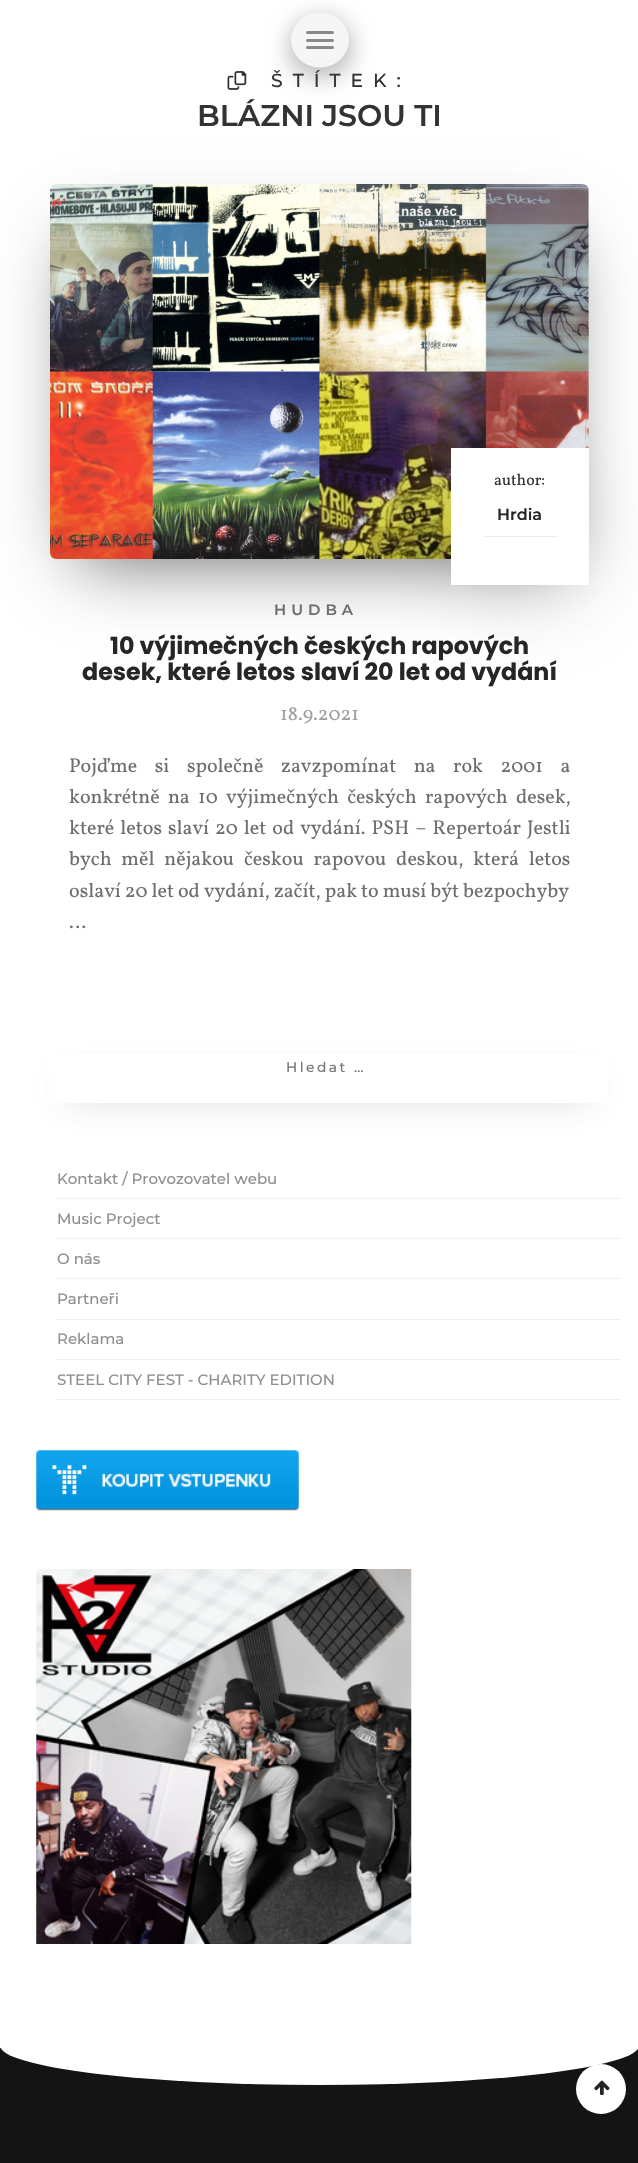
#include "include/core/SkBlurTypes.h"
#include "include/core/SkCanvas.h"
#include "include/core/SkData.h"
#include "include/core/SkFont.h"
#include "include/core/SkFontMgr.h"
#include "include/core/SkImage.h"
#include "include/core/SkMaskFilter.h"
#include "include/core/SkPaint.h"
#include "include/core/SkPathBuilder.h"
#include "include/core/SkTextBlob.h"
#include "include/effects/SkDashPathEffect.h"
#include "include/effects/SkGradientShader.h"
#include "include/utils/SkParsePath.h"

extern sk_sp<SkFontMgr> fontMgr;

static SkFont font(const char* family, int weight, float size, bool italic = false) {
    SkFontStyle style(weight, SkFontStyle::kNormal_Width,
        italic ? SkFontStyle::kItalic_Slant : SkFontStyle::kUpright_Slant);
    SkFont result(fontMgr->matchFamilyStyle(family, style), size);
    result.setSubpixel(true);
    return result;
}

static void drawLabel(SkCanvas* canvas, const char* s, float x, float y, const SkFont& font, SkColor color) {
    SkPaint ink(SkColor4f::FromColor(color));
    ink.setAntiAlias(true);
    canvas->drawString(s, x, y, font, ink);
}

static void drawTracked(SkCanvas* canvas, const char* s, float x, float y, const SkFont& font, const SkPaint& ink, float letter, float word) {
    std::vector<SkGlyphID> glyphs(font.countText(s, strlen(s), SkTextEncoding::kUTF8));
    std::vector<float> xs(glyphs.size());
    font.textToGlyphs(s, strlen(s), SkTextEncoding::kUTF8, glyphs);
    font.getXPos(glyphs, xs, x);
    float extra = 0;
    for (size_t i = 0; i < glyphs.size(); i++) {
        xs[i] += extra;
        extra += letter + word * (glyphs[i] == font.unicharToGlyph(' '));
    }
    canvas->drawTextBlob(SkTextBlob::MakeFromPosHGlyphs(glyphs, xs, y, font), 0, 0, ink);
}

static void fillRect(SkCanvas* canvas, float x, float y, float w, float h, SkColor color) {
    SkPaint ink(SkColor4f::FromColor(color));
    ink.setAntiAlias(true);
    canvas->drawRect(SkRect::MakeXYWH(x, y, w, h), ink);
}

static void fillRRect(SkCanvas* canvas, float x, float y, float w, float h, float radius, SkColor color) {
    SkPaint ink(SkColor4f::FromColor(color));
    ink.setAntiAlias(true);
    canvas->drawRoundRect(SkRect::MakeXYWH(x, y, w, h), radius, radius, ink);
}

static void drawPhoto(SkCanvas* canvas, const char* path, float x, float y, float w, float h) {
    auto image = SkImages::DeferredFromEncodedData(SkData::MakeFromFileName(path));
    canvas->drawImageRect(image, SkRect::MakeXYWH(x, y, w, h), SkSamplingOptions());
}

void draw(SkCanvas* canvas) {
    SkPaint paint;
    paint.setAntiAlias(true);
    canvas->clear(0xFFFFFFFF);
    paint.setColor(0x40000000);
    paint.setMaskFilter(SkMaskFilter::MakeBlur(kNormal_SkBlurStyle, 10.5f));
    canvas->drawRoundRect(SkRect::MakeXYWH(288, 16, 65, 63), 31.5f, 31.5f, paint);
    paint.setMaskFilter(nullptr);
    paint.setColor(0xFFF5F5F5);
    canvas->drawOval(SkRect::MakeXYWH(291, 12.5f, 58, 55), paint);
    fillRRect(canvas, 306, 31, 28, 3, 1.5f, 0xFF888888);
    fillRRect(canvas, 306, 39, 28, 3, 1.5f, 0xFF888888);
    fillRRect(canvas, 306, 46, 28, 3, 1.5f, 0xFF888888);
    drawPhoto(canvas, "assets/img1.png", 227, 71, 20, 19);
    SkFont font1 = font("Montserrat", 500, 18.75f);
    paint.setColor(0xFF333333);
    drawTracked(canvas, "ŠTÍTEK:", 271, 87, font1, paint, 10, 0);
    SkFont font2 = font("Montserrat", 600, 30);
    drawLabel(canvas, "BLÁZNI JSOU TI", 197, 126, font2, 0xFF333333);
    paint.setColor(0x99000000);
    paint.setMaskFilter(SkMaskFilter::MakeBlur(kNormal_SkBlurStyle, 34.5f));
    canvas->drawRect(SkRect::MakeXYWH(78, 240, 483, 320), paint);
    paint.setMaskFilter(nullptr);
    drawPhoto(canvas, "assets/img2.png", 50, 184, 539, 375);
    paint.setColor(0x80000000);
    paint.setMaskFilter(SkMaskFilter::MakeBlur(kNormal_SkBlurStyle, 49));
    canvas->drawRect(SkRect::MakeXYWH(504, 521, 47, 48), paint);
    paint.setMaskFilter(nullptr);
    fillRect(canvas, 451, 448, 138, 137, 0xFFFFFFFF);
    SkFont font3 = font("Vollkorn", 400, 16);
    drawLabel(canvas, "author:", 494, 485, font3, 0xFF333333);
    SkFont font4 = font("Montserrat", 600, 16);
    drawLabel(canvas, "Hrdia", 497, 520, font4, 0xFF262626);
    fillRect(canvas, 483, 536, 75, 1, 0xFFEEEEEE);
    SkFont font5 = font("Montserrat", 600, 15);
    paint.setColor(0xFF6E6E6E);
    drawTracked(canvas, "HUDBA", 274, 615, font5, paint, 5, 0);
    SkFont font6 = font("Poppins", 700, 23.75f);
    drawLabel(canvas, "10 výjimečných českých rapových", 110, 654, font6, 0xFF262626);
    drawLabel(canvas, "desek, které letos slaví 20 let od vydání", 82, 680, font6, 0xFF262626);
    SkFont font7 = font("Vollkorn", 400, 20);
    drawLabel(canvas, "18.9.2021", 280, 720, font7, 0xFF9F9F9F);
    drawTracked(canvas, "Pojďme si společně zavzpomínat na rok 2001 a", 69, 772, font7, paint, 0, 13.5f);
    drawTracked(canvas, "konkrétně na 10 výjimečných českých rapových desek,", 69, 803, font7, paint, 0, 4.25f);
    drawTracked(canvas, "které letos slaví 20 let od vydání. PSH – Repertoár Jestli", 69, 834, font7, paint, 0, 2);
    drawTracked(canvas, "bych měl nějakou českou rapovou deskou, která letos", 69, 865, font7, paint, 0, 5.75f);
    drawLabel(canvas, "oslaví 20 let od vydání, začít, pak to musí být bezpochyby", 69, 897, font7, 0xFF6E6E6E);
    drawLabel(canvas, "…", 69, 928, font7, 0xFF6E6E6E);
    paint.setColor(0xB3000000);
    paint.setMaskFilter(SkMaskFilter::MakeBlur(kNormal_SkBlurStyle, 17));
    canvas->drawRect(SkRect::MakeXYWH(69, 1086, 519, 5), paint);
    paint.setMaskFilter(nullptr);
    fillRect(canvas, 49, 1054, 559, 49, 0xFFFFFFFF);
    SkFont font8 = font("Montserrat", 500, 13.75f);
    paint.setColor(0xFF757575);
    drawTracked(canvas, "Hledat …", 286, 1072, font8, paint, 2.5f, 0);
    fillRect(canvas, 56, 1198, 564, 1, 0xFFEFEFEF);
    SkFont font9 = font("Montserrat", 500, 15);
    drawLabel(canvas, "Kontakt / Provozovatel webu", 57, 1184, font9, 0xFF8F8F8F);
    fillRect(canvas, 56, 1238, 564, 1, 0xFFEFEFEF);
    drawLabel(canvas, "Music Project", 57, 1224, font9, 0xFF8F8F8F);
    fillRect(canvas, 56, 1278, 564, 1, 0xFFEFEFEF);
    drawLabel(canvas, "O nás", 57, 1264, font9, 0xFF8F8F8F);
    fillRect(canvas, 56, 1319, 564, 1, 0xFFEFEFEF);
    drawLabel(canvas, "Partneři", 57, 1304, font9, 0xFF8F8F8F);
    fillRect(canvas, 56, 1359, 564, 1, 0xFFEFEFEF);
    drawLabel(canvas, "Reklama", 57, 1344, font9, 0xFF8F8F8F);
    fillRect(canvas, 56, 1399, 564, 1, 0xFFEFEFEF);
    drawLabel(canvas, "STEEL CITY FEST - CHARITY EDITION", 57, 1385, font9, 0xFF8F8F8F);
    drawPhoto(canvas, "assets/img3.png", 36, 1450, 263, 61);
    drawPhoto(canvas, "assets/img4.png", 36, 1569, 376, 375);
    fillRect(canvas, 0, 2048, 638, 115, 0xFF141414);
    paint.setColor(0xFFFFFFFF);
    canvas->drawOval(SkRect::MakeXYWH(0, 2006, 639, 79), paint);
    canvas->drawCircle(601, 2089, 25, paint);
    drawPhoto(canvas, "assets/img5.png", 594, 2080, 16, 15);
}
